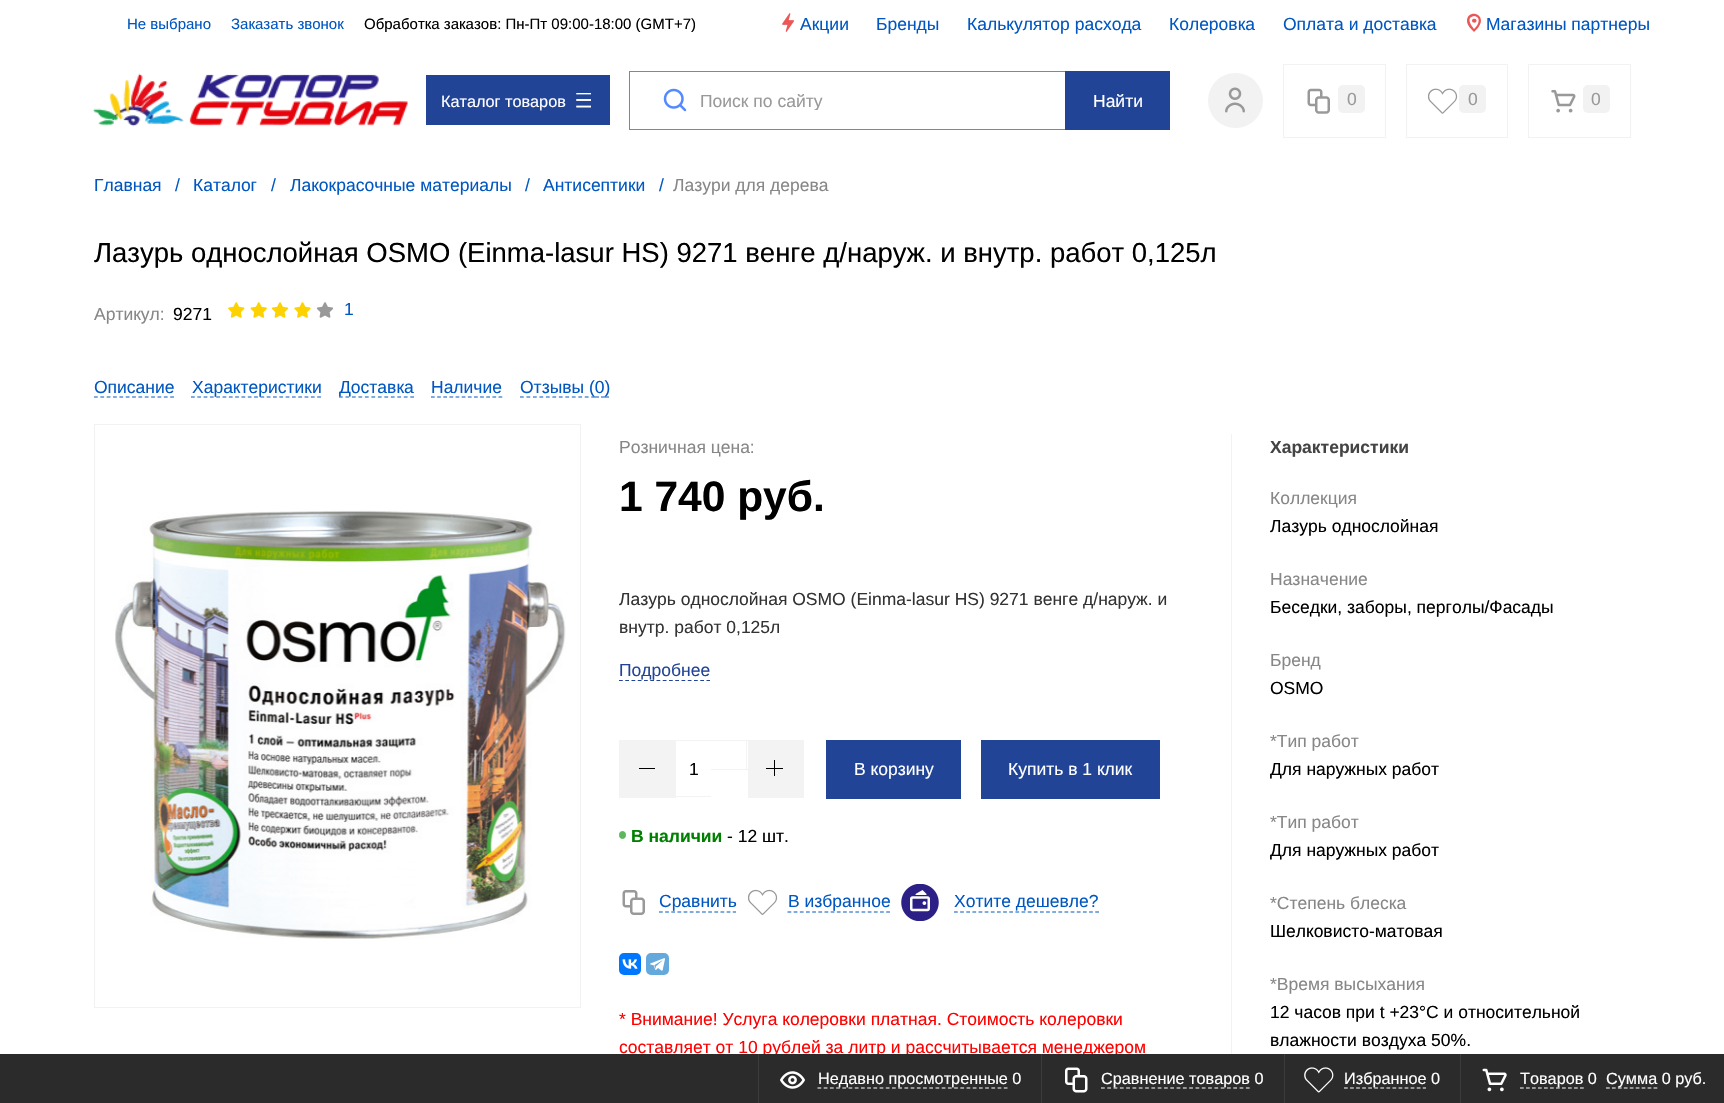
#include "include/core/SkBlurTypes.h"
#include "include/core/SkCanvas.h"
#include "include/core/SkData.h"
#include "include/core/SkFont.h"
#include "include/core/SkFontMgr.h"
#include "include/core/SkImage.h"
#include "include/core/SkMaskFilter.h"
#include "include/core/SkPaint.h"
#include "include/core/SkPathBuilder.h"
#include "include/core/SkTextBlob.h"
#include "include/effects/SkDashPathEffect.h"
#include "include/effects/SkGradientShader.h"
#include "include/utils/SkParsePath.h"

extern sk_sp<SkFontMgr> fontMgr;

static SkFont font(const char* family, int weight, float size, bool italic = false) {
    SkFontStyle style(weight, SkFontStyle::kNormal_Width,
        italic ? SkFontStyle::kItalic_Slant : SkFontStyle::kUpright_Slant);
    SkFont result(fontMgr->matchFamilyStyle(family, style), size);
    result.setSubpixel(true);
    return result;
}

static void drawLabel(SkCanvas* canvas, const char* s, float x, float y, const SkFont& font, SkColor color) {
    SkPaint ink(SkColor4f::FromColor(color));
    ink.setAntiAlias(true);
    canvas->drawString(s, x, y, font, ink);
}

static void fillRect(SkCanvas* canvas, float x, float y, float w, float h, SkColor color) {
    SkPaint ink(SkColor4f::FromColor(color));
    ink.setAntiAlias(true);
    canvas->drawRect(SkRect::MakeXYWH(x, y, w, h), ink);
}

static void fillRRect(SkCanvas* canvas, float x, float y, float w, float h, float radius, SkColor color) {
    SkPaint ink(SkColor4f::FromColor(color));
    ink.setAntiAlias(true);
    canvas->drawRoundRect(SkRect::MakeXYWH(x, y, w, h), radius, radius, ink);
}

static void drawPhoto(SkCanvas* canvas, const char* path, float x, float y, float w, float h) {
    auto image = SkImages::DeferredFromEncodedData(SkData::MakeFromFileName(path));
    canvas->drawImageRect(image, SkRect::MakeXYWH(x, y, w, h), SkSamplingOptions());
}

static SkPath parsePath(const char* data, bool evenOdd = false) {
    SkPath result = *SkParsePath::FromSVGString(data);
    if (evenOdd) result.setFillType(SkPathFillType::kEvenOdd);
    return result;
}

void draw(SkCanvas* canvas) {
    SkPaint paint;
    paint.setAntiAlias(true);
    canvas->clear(0xFFFFFFFF);
    SkFont font1 = font("Liberation Sans", 400, 15);
    drawLabel(canvas, "Не выбрано", 127, 29, font1, 0xFF0057C2);
    drawLabel(canvas, "Заказать звонок", 231, 29, font1, 0xFF0057C2);
    drawLabel(canvas, "Обработка заказов: Пн-Пт 09:00-18:00 (GMT+7)", 364, 29, font1, 0xFF000000);
    drawPhoto(canvas, "assets/img1.png", 782, 13, 12, 19);
    SkFont font2 = font("Liberation Sans", 400, 17.5f);
    drawLabel(canvas, "Акции", 800, 30, font2, 0xFF0057C2);
    drawLabel(canvas, "Бренды", 876, 30, font2, 0xFF0057C2);
    drawLabel(canvas, "Калькулятор расхода", 967, 30, font2, 0xFF0057C2);
    drawLabel(canvas, "Колеровка", 1169, 30, font2, 0xFF0057C2);
    drawLabel(canvas, "Оплата и доставка", 1283, 30, font2, 0xFF0057C2);
    paint.setColor(0xFFEB5757);
    canvas->drawPath(parsePath("M1472 20.5C1472 18 1476.5 18 1476.5 20.5C1476.5 23.5 1472 23.5 1472 20.5Z", true), paint);
    canvas->save();
    canvas->clipRect(SkRect::MakeXYWH(1464, 13, 20, 20));
    canvas->drawPath(parsePath("M1474 16C1473 16 1471 17 1470 18C1468 22 1472 26 1474 29C1477 26 1480 22 1478 18C1477 17 1476 16 1474 16ZM1467 21C1467 7 1493 15 1474 32C1471 29 1467 25 1467 21ZM1464 126L1691 353L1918 126Z", true), paint);
    canvas->restore();
    drawLabel(canvas, "Магазины партнеры", 1486, 30, font2, 0xFF0057C2);
    drawPhoto(canvas, "assets/img2.png", 93, 73, 315, 54);
    fillRect(canvas, 426, 75, 184, 50, 0xFF214496);
    SkFont font3 = font("Liberation Sans", 400, 16.25f);
    drawLabel(canvas, "Каталог товаров", 441, 107, font3, 0xFFFFFFFF);
    drawPhoto(canvas, "assets/img3.png", 576, 93, 15, 15);
    paint.setStroke(true);
    paint.setStrokeWidth(1);
    paint.setColor(0xFF5489FF);
    canvas->drawRect(SkRect::MakeXYWH(629.5f, 71.5f, 436, 58), paint);
    drawPhoto(canvas, "assets/img4.png", 663, 88, 24, 24);
    canvas->save();
    canvas->clipRect(SkRect::MakeXYWH(700, 90, 345, 20));
    drawLabel(canvas, "Поиск по сайту", 700, 107, font2, 0xFF999999);
    canvas->restore();
    fillRect(canvas, 1065, 71, 105, 59, 0xFF214496);
    drawLabel(canvas, "Найти", 1093, 107, font2, 0xFFFFFFFF);
    paint.setStroke(false);
    paint.setColor(0xFFF2F2F2);
    canvas->drawCircle(1235.5f, 100.5f, 27.5f, paint);
    drawPhoto(canvas, "assets/img5.png", 1225, 87, 20, 26);
    paint.setStroke(true);
    canvas->drawRect(SkRect::MakeXYWH(1283.5f, 64.5f, 102, 73), paint);
    drawPhoto(canvas, "assets/img6.png", 1307, 88, 23, 26);
    fillRRect(canvas, 1338, 85, 27, 28, 5, 0xFFF2F2F2);
    drawLabel(canvas, "0", 1347, 105, font2, 0xFF999999);
    canvas->drawRect(SkRect::MakeXYWH(1406.5f, 64.5f, 101, 73), paint);
    drawPhoto(canvas, "assets/img7.png", 1428, 88, 30, 26);
    fillRRect(canvas, 1459, 85, 27, 28, 5, 0xFFF2F2F2);
    drawLabel(canvas, "0", 1468, 105, font2, 0xFF999999);
    canvas->drawRect(SkRect::MakeXYWH(1528.5f, 64.5f, 102, 73), paint);
    drawPhoto(canvas, "assets/img8.png", 1551, 90, 25, 23);
    fillRRect(canvas, 1583, 85, 27, 28, 5, 0xFFF2F2F2);
    drawLabel(canvas, "0", 1591, 105, font2, 0xFF999999);
    drawLabel(canvas, "Главная", 94, 191, font2, 0xFF0057C2);
    drawLabel(canvas, "/", 175, 191, font2, 0xFF0057C2);
    drawLabel(canvas, "Каталог", 193, 191, font2, 0xFF0057C2);
    drawLabel(canvas, "/", 271, 191, font2, 0xFF0057C2);
    drawLabel(canvas, "Лакокрасочные материалы", 290, 191, font2, 0xFF0057C2);
    drawLabel(canvas, "/", 525, 191, font2, 0xFF0057C2);
    drawLabel(canvas, "Антисептики", 543, 191, font2, 0xFF0057C2);
    drawLabel(canvas, "/", 659, 191, font2, 0xFF0057C2);
    drawLabel(canvas, "Лазури для дерева", 673, 191, font2, 0xFF878787);
    SkFont font4 = font("Liberation Sans", 400, 27.5f);
    drawLabel(canvas, "Лазурь однослойная OSMO (Einma-lasur HS) 9271 венге д/наруж. и внутр. работ 0,125л", 94, 262, font4, 0xFF000000);
    drawLabel(canvas, "Артикул:", 94, 320, font2, 0xFF878787);
    drawLabel(canvas, "9271", 173, 320, font2, 0xFF000000);
    drawPhoto(canvas, "assets/img9.png", 228, 302, 17, 16);
    drawPhoto(canvas, "assets/img10.png", 250, 302, 17, 16);
    drawPhoto(canvas, "assets/img11.png", 271, 302, 18, 16);
    drawPhoto(canvas, "assets/img12.png", 294, 302, 17, 16);
    drawPhoto(canvas, "assets/img13.png", 316, 302, 18, 16);
    drawLabel(canvas, "1", 344, 315, font2, 0xFF0057C2);
    drawLabel(canvas, "Описание", 94, 393, font2, 0xFF0057C2);
    paint.setStrokeWidth(1.2f);
    paint.setColor(0xFF0057C2);
    paint.setPathEffect(SkDashPathEffect::Make({{3.75f, 2.6f}}, 0));
    canvas->drawPath(parsePath("M94 397H174"), paint);
    paint.setPathEffect(nullptr);
    paint.setPathEffect(SkDashPathEffect::Make({{3.75f, 2.56f}}, 0));
    canvas->drawPath(parsePath("M191 397H321"), paint);
    paint.setPathEffect(nullptr);
    drawLabel(canvas, "Характеристики", 192, 393, font2, 0xFF0057C2);
    paint.setPathEffect(SkDashPathEffect::Make({{3.75f, 2.73f}}, 0));
    canvas->drawPath(parsePath("M339 397H414"), paint);
    paint.setPathEffect(nullptr);
    drawLabel(canvas, "Доставка", 339, 393, font2, 0xFF0057C2);
    drawLabel(canvas, "Наличие", 431, 393, font2, 0xFF0057C2);
    paint.setPathEffect(SkDashPathEffect::Make({{3.75f, 2.39f}}, 0));
    canvas->drawPath(parsePath("M431 397H502.5"), paint);
    paint.setPathEffect(nullptr);
    paint.setPathEffect(SkDashPathEffect::Make({{3.75f, 2.73f}}, 0));
    canvas->drawPath(parsePath("M520 397H595"), paint);
    paint.setPathEffect(nullptr);
    canvas->drawPath(parsePath("M595 397H599M601 397H605M605 397H609"), paint);
    drawLabel(canvas, "Отзывы (0)", 520, 393, font2, 0xFF0057C2);
    paint.setStrokeWidth(1);
    paint.setColor(0xFFF2F2F2);
    canvas->drawRect(SkRect::MakeXYWH(94.5f, 424.5f, 486, 583), paint);
    drawPhoto(canvas, "assets/img14.png", 115, 510, 451, 429);
    drawLabel(canvas, "Розничная цена:", 619, 453, font2, 0xFF878787);
    SkFont font5 = font("Liberation Sans", 700, 42.5f);
    drawLabel(canvas, "1 740 руб.", 619, 511, font5, 0xFF000000);
    fillRect(canvas, 1231, 434, 1, 620, 0xFFF2F2F2);
    SkFont font6 = font("Liberation Sans", 700, 17.5f);
    drawLabel(canvas, "Характеристики", 1270, 453, font6, 0xFF444444);
    drawLabel(canvas, "Коллекция", 1270, 504, font2, 0xFF878787);
    drawLabel(canvas, "Лазурь однослойная", 1270, 532, font2, 0xFF000000);
    drawLabel(canvas, "Назначение", 1270, 585, font2, 0xFF878787);
    drawLabel(canvas, "Беседки, заборы, перголы/Фасады", 1270, 613, font2, 0xFF000000);
    drawLabel(canvas, "Бренд", 1270, 666, font2, 0xFF878787);
    drawLabel(canvas, "OSMO", 1270, 694, font2, 0xFF000000);
    drawLabel(canvas, "*Тип работ", 1270, 747, font2, 0xFF878787);
    drawLabel(canvas, "Для наружных работ", 1270, 775, font2, 0xFF000000);
    drawLabel(canvas, "*Тип работ", 1270, 828, font2, 0xFF878787);
    drawLabel(canvas, "Для наружных работ", 1270, 856, font2, 0xFF000000);
    drawLabel(canvas, "*Степень блеска", 1270, 909, font2, 0xFF878787);
    drawLabel(canvas, "Шелковисто-матовая", 1270, 937, font2, 0xFF000000);
    drawLabel(canvas, "*Время высыхания", 1270, 990, font2, 0xFF878787);
    drawLabel(canvas, "12 часов при t +23°С и относительной", 1270, 1018, font2, 0xFF000000);
    drawLabel(canvas, "влажности воздуха 50%.", 1270, 1046, font2, 0xFF000000);
    drawLabel(canvas, "Лазурь однослойная OSMO (Einma-lasur HS) 9271 венге д/наруж. и", 619, 605, font2, 0xFF333333);
    drawLabel(canvas, "внутр. работ 0,125л", 619, 633, font2, 0xFF333333);
    paint.setStrokeWidth(1.2f);
    paint.setColor(0xFF214496);
    paint.setPathEffect(SkDashPathEffect::Make({{3.75f, 2.5f}}, 0));
    canvas->drawPath(parsePath("M619 680.5H710"), paint);
    paint.setPathEffect(nullptr);
    drawLabel(canvas, "Подробнее", 619, 676, font2, 0xFF214496);
    fillRect(canvas, 675, 740, 73, 1, 0xFFF3F3F3);
    fillRect(canvas, 675, 796, 36, 1, 0xFFF3F3F3);
    fillRect(canvas, 619, 740, 57, 58, 0xFFF3F3F3);
    fillRect(canvas, 639, 768, 16, 1, 0xFF000000);
    drawLabel(canvas, "1", 689, 775, font2, 0xFF000000);
    fillRect(canvas, 746, 740, 1, 30, 0xFFF3F3F3);
    fillRect(canvas, 711, 769, 37, 1, 0xFFF3F3F3);
    fillRect(canvas, 748, 740, 56, 58, 0xFFF3F3F3);
    fillRect(canvas, 766, 768, 17, 1, 0xFF000000);
    fillRect(canvas, 774, 760, 1, 16, 0xFF000000);
    fillRect(canvas, 826, 740, 135, 59, 0xFF214496);
    drawLabel(canvas, "В корзину", 854, 775, font2, 0xFFFFFFFF);
    fillRect(canvas, 981, 740, 179, 59, 0xFF214496);
    drawLabel(canvas, "Купить в 1 клик", 1008, 775, font2, 0xFFFFFFFF);
    paint.setStroke(false);
    paint.setColor(0xFF5CB85C);
    canvas->drawRoundRect(SkRect::MakeXYWH(619.5f, 831.5f, 6, 7), 3, 3, paint);
    paint.setStroke(true);
    paint.setStrokeWidth(1);
    canvas->drawRoundRect(SkRect::MakeXYWH(619.5f, 831.5f, 6, 7), 3, 3, paint);
    drawLabel(canvas, "В наличии", 631, 842, font6, 0xFF008000);
    drawLabel(canvas, "- 12 шт.", 727, 842, font2, 0xFF000000);
    drawPhoto(canvas, "assets/img15.png", 622, 890, 23, 25);
    drawLabel(canvas, "Сравнить", 659, 907, font2, 0xFF0057C2);
    paint.setStrokeWidth(1.2f);
    paint.setColor(0xFF0057C2);
    paint.setPathEffect(SkDashPathEffect::Make({{3.75f, 2.4f}}, 0));
    canvas->drawPath(parsePath("M659 912H736"), paint);
    paint.setPathEffect(nullptr);
    drawPhoto(canvas, "assets/img16.png", 748, 889, 30, 26);
    drawLabel(canvas, "В избранное", 788, 907, font2, 0xFF0057C2);
    paint.setPathEffect(SkDashPathEffect::Make({{3.75f, 2.42f}}, 0));
    canvas->drawPath(parsePath("M787.5 912H890"), paint);
    paint.setPathEffect(nullptr);
    drawPhoto(canvas, "assets/img17.png", 901, 884, 38, 37);
    drawLabel(canvas, "Хотите дешевле?", 954, 907, font2, 0xFF0057C2);
    paint.setPathEffect(SkDashPathEffect::Make({{3.75f, 2.39f}}, 0));
    canvas->drawPath(parsePath("M954 912H1099"), paint);
    paint.setPathEffect(nullptr);
    fillRRect(canvas, 619, 953, 22, 22, 5, 0xFF0077FF);
    drawPhoto(canvas, "assets/img18.png", 622, 959, 16, 10);
    fillRRect(canvas, 646, 953, 23, 22, 5, 0xFF64A9DC);
    drawPhoto(canvas, "assets/img19.png", 650, 958, 15, 13);
    drawLabel(canvas, "* Внимание! Услуга колеровки платная. Стоимость колеровки", 619, 1025, font2, 0xFFFF0000);
    drawLabel(canvas, "составляет от 10 рублей за литр и рассчитывается менеджером", 619, 1053, font2, 0xFFFF0000);
    fillRect(canvas, 0, 1054, 1724, 49, 0xFF2B2B2B);
    fillRect(canvas, 758, 1054, 1, 49, 0xFF3C3C3C);
    drawPhoto(canvas, "assets/img20.png", 780, 1071, 25, 18);
    paint.setColor(0xFFFFFFFF);
    paint.setPathEffect(SkDashPathEffect::Make({{3.75f, 2.46f}}, 0));
    canvas->drawPath(parsePath("M817.5 1088H1007.5"), paint);
    paint.setPathEffect(nullptr);
    drawLabel(canvas, "Недавно просмотренные 0", 818, 1084, font3, 0xFFFFFFFF);
    fillRect(canvas, 1041, 1054, 1, 49, 0xFF3C3C3C);
    drawPhoto(canvas, "assets/img21.png", 1065, 1067, 23, 26);
    paint.setPathEffect(SkDashPathEffect::Make({{3.75f, 2.55f}}, 0));
    canvas->drawPath(parsePath("M1101 1088H1250"), paint);
    paint.setPathEffect(nullptr);
    drawLabel(canvas, "Сравнение товаров 0", 1101, 1084, font3, 0xFFFFFFFF);
    fillRect(canvas, 1284, 1054, 1, 49, 0xFF3C3C3C);
    drawPhoto(canvas, "assets/img22.png", 1304, 1067, 30, 26);
    paint.setPathEffect(SkDashPathEffect::Make({{3.75f, 2.31f}}, 0));
    canvas->drawPath(parsePath("M1344 1088H1426"), paint);
    paint.setPathEffect(nullptr);
    drawLabel(canvas, "Избранное 0", 1344, 1084, font3, 0xFFFFFFFF);
    fillRect(canvas, 1460, 1054, 1, 49, 0xFF3C3C3C);
    drawPhoto(canvas, "assets/img23.png", 1482, 1068, 25, 24);
    paint.setPathEffect(SkDashPathEffect::Make({{3.75f, 2.25f}}, 0));
    canvas->drawPath(parsePath("M1520 1088H1584"), paint);
    paint.setPathEffect(nullptr);
    drawLabel(canvas, "Товаров 0", 1520, 1084, font3, 0xFFFFFFFF);
    paint.setPathEffect(SkDashPathEffect::Make({{3.75f, 2.19f}}, 0));
    canvas->drawPath(parsePath("M1606 1088H1657.5"), paint);
    paint.setPathEffect(nullptr);
    drawLabel(canvas, "Сумма 0 руб.", 1606, 1084, font3, 0xFFFFFFFF);
}
